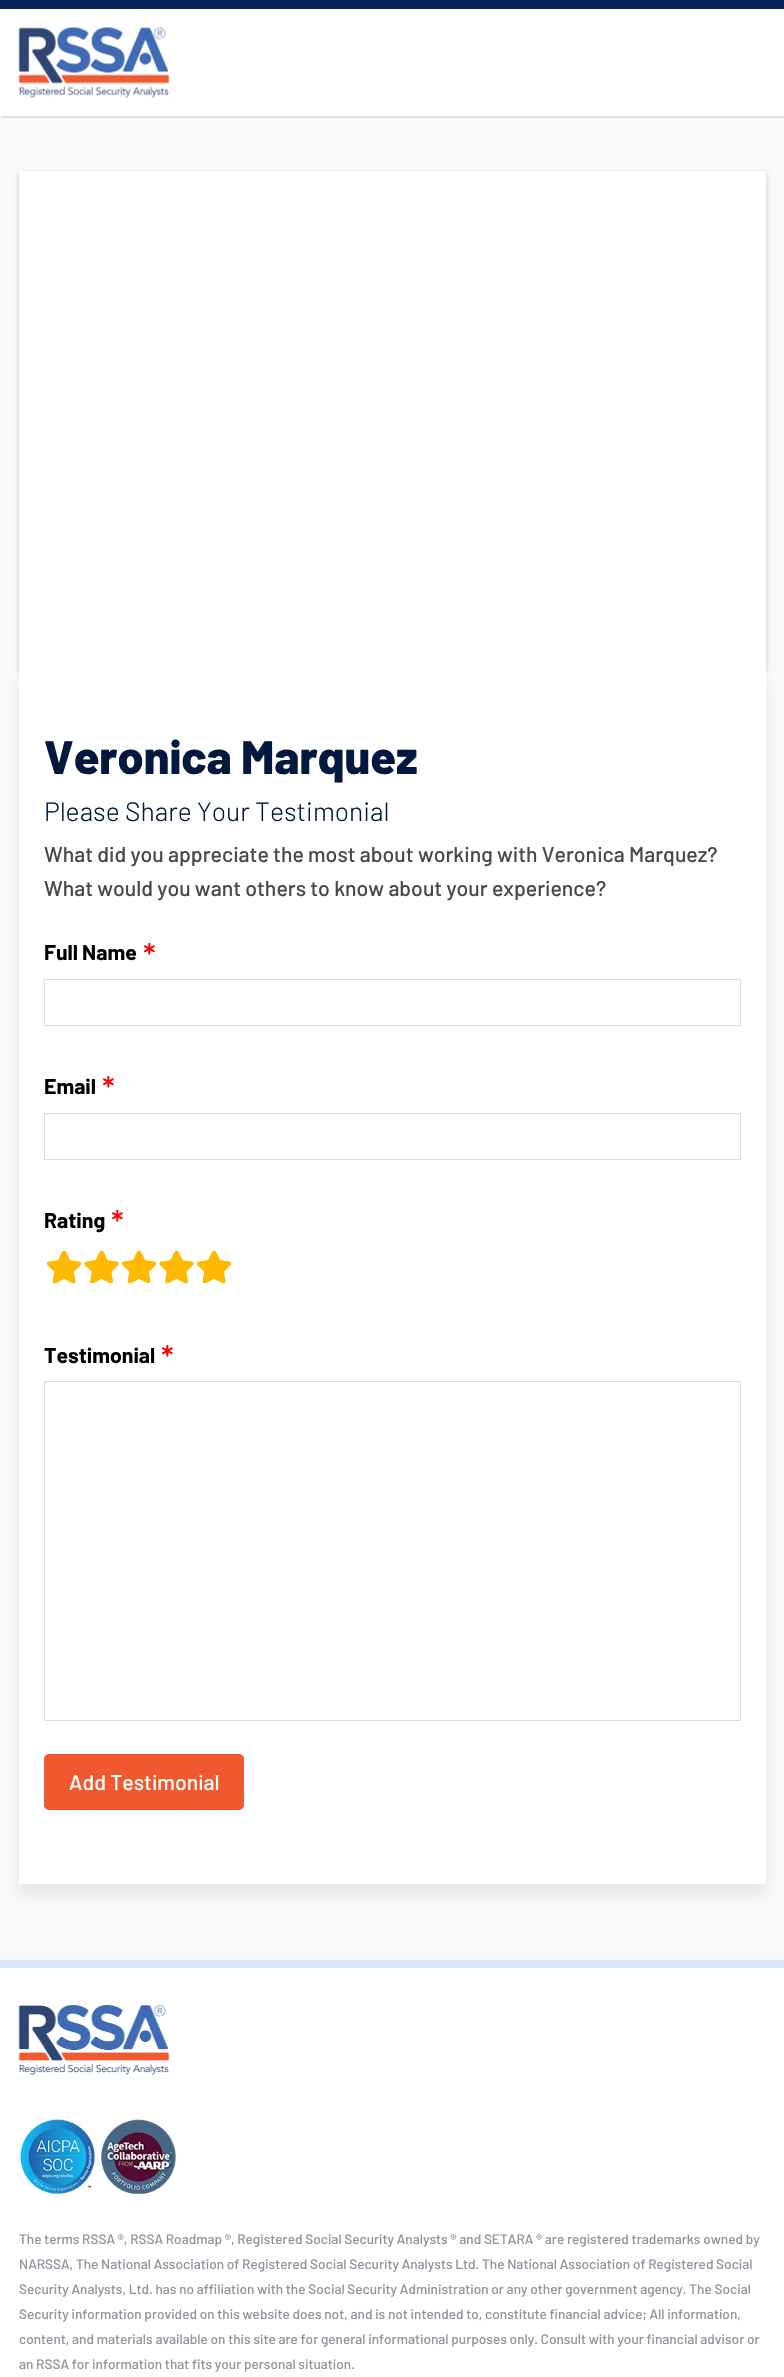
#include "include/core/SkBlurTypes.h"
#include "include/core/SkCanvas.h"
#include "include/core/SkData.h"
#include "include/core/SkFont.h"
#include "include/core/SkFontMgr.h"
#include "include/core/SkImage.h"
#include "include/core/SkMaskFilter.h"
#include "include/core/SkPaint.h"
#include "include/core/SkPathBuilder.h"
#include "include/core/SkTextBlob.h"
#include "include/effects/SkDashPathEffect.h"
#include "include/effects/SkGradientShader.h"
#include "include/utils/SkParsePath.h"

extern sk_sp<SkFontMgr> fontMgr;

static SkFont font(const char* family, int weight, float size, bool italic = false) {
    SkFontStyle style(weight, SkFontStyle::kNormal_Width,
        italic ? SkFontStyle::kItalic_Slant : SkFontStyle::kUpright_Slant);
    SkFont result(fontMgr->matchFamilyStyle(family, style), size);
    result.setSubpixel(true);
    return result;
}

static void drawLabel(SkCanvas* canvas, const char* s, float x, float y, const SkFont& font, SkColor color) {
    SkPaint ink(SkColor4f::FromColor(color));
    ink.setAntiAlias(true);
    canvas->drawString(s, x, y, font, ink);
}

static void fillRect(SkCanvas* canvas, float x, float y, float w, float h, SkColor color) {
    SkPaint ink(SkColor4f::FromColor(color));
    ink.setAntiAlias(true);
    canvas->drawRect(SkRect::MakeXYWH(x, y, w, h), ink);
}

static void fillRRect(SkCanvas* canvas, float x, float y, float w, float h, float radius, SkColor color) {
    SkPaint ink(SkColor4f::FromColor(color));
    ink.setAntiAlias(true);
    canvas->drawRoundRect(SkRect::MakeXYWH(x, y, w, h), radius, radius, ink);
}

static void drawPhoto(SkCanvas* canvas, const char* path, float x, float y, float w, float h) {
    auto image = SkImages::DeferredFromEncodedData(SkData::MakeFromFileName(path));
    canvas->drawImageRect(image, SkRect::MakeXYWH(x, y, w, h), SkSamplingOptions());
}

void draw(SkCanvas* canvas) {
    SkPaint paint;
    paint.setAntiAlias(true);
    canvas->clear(0xFFFFFFFF);
    fillRect(canvas, 0, 116, 784, 1844, 0xFFF8F9FA);
    canvas->save();
    canvas->clipRect(SkRect::MakeXYWH(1, 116, 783, 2));
    paint.setColor(0x1A000000);
    paint.setMaskFilter(SkMaskFilter::MakeBlur(kNormal_SkBlurStyle, 0.5f));
    canvas->drawRect(SkRect::MakeXYWH(1, 4, 783, 114), paint);
    paint.setMaskFilter(nullptr);
    canvas->restore();
    fillRect(canvas, 0, 0, 784, 9, 0xFF092458);
    drawPhoto(canvas, "assets/img1.png", 18, 27, 151, 71);
    paint.setColor(0x33000000);
    paint.setMaskFilter(SkMaskFilter::MakeBlur(kNormal_SkBlurStyle, 2.5f));
    canvas->drawRect(SkRect::MakeXYWH(19, 173, 747, 500), paint);
    paint.setMaskFilter(nullptr);
    fillRect(canvas, 19, 171, 747, 500, 0xFFFFFFFF);
    paint.setColor(0x1C444545);
    paint.setMaskFilter(SkMaskFilter::MakeBlur(kNormal_SkBlurStyle, 6));
    canvas->drawRect(SkRect::MakeXYWH(19, 681, 747, 1213), paint);
    paint.setMaskFilter(nullptr);
    fillRect(canvas, 19, 671, 747, 1213, 0xFFFFFFFF);
    SkFont font1 = font("Barlow", 800, 46.75f);
    drawLabel(canvas, "Veronica Marquez", 44, 774, font1, 0xFF02183E);
    SkFont font2 = font("Barlow", 300, 26.5f);
    drawLabel(canvas, "Please Share Your Testimonial", 44, 821, font2, 0xFF02183E);
    SkFont font3 = font("Barlow", 500, 21.25f);
    drawLabel(canvas, "What did you appreciate the most about working with Veronica Marquez?", 44, 862, font3, 0xFF48494C);
    drawLabel(canvas, "What would you want others to know about your experience?", 44, 896, font3, 0xFF48494C);
    SkFont font4 = font("Barlow", 700, 21.25f);
    drawLabel(canvas, "Full Name", 44, 960, font4, 0xFF000000);
    SkFont font5 = font("Barlow", 500, 32);
    drawLabel(canvas, "*", 143, 967, font5, 0xFFFF0000);
    paint.setStroke(true);
    paint.setStrokeWidth(1);
    paint.setColor(0xFFDDDDDD);
    canvas->drawRect(SkRect::MakeXYWH(44.5f, 979.5f, 696, 46), paint);
    drawLabel(canvas, "Email", 44, 1094, font4, 0xFF000000);
    drawLabel(canvas, "*", 102, 1100, font5, 0xFFFF0000);
    canvas->drawRect(SkRect::MakeXYWH(44.5f, 1113.5f, 696, 46), paint);
    drawLabel(canvas, "Rating", 44, 1228, font4, 0xFF000000);
    drawLabel(canvas, "*", 111, 1234, font5, 0xFFFF0000);
    drawPhoto(canvas, "assets/img2.png", 47, 1250, 34, 33);
    drawPhoto(canvas, "assets/img3.png", 84, 1250, 35, 33);
    drawPhoto(canvas, "assets/img2.png", 122, 1250, 34, 33);
    drawPhoto(canvas, "assets/img3.png", 159, 1250, 35, 33);
    drawPhoto(canvas, "assets/img2.png", 197, 1250, 34, 33);
    drawLabel(canvas, "Testimonial", 44, 1363, font4, 0xFF000000);
    drawLabel(canvas, "*", 161, 1369, font5, 0xFFFF0000);
    canvas->drawRect(SkRect::MakeXYWH(44.5f, 1381.5f, 696, 339), paint);
    fillRRect(canvas, 44, 1754, 200, 56, 5, 0xFFF05830);
    drawLabel(canvas, "Add Testimonial", 69, 1790, font3, 0xFFFFFFFF);
    fillRect(canvas, 0, 1960, 784, 8, 0xFFDAE9FC);
    drawPhoto(canvas, "assets/img4.png", 18, 2005, 151, 70);
    drawPhoto(canvas, "assets/img5.png", 20, 2119, 157, 75);
    SkFont font6 = font("Barlow", 500, 13.6f);
    drawLabel(canvas, "The terms RSSA ®, RSSA Roadmap ®, Registered Social Security Analysts ® and SETARA ® are registered trademarks owned by", 19, 2244, font6, 0xFF8E959F);
    drawLabel(canvas, "NARSSA, The National Association of Registered Social Security Analysts Ltd. The National Association of Registered Social", 19, 2269, font6, 0xFF8E959F);
    drawLabel(canvas, "Security Analysts, Ltd. has no affiliation with the Social Security Administration or any other government agency. The Social", 19, 2294, font6, 0xFF8E959F);
    drawLabel(canvas, "Security information provided on this website does not, and is not intended to, constitute financial advice; All information,", 19, 2319, font6, 0xFF8E959F);
    drawLabel(canvas, "content, and materials available on this site are for general informational purposes only. Consult with your financial advisor or", 19, 2344, font6, 0xFF8E959F);
    drawLabel(canvas, "an RSSA for information that fits your personal situation.", 19, 2369, font6, 0xFF8E959F);
}
